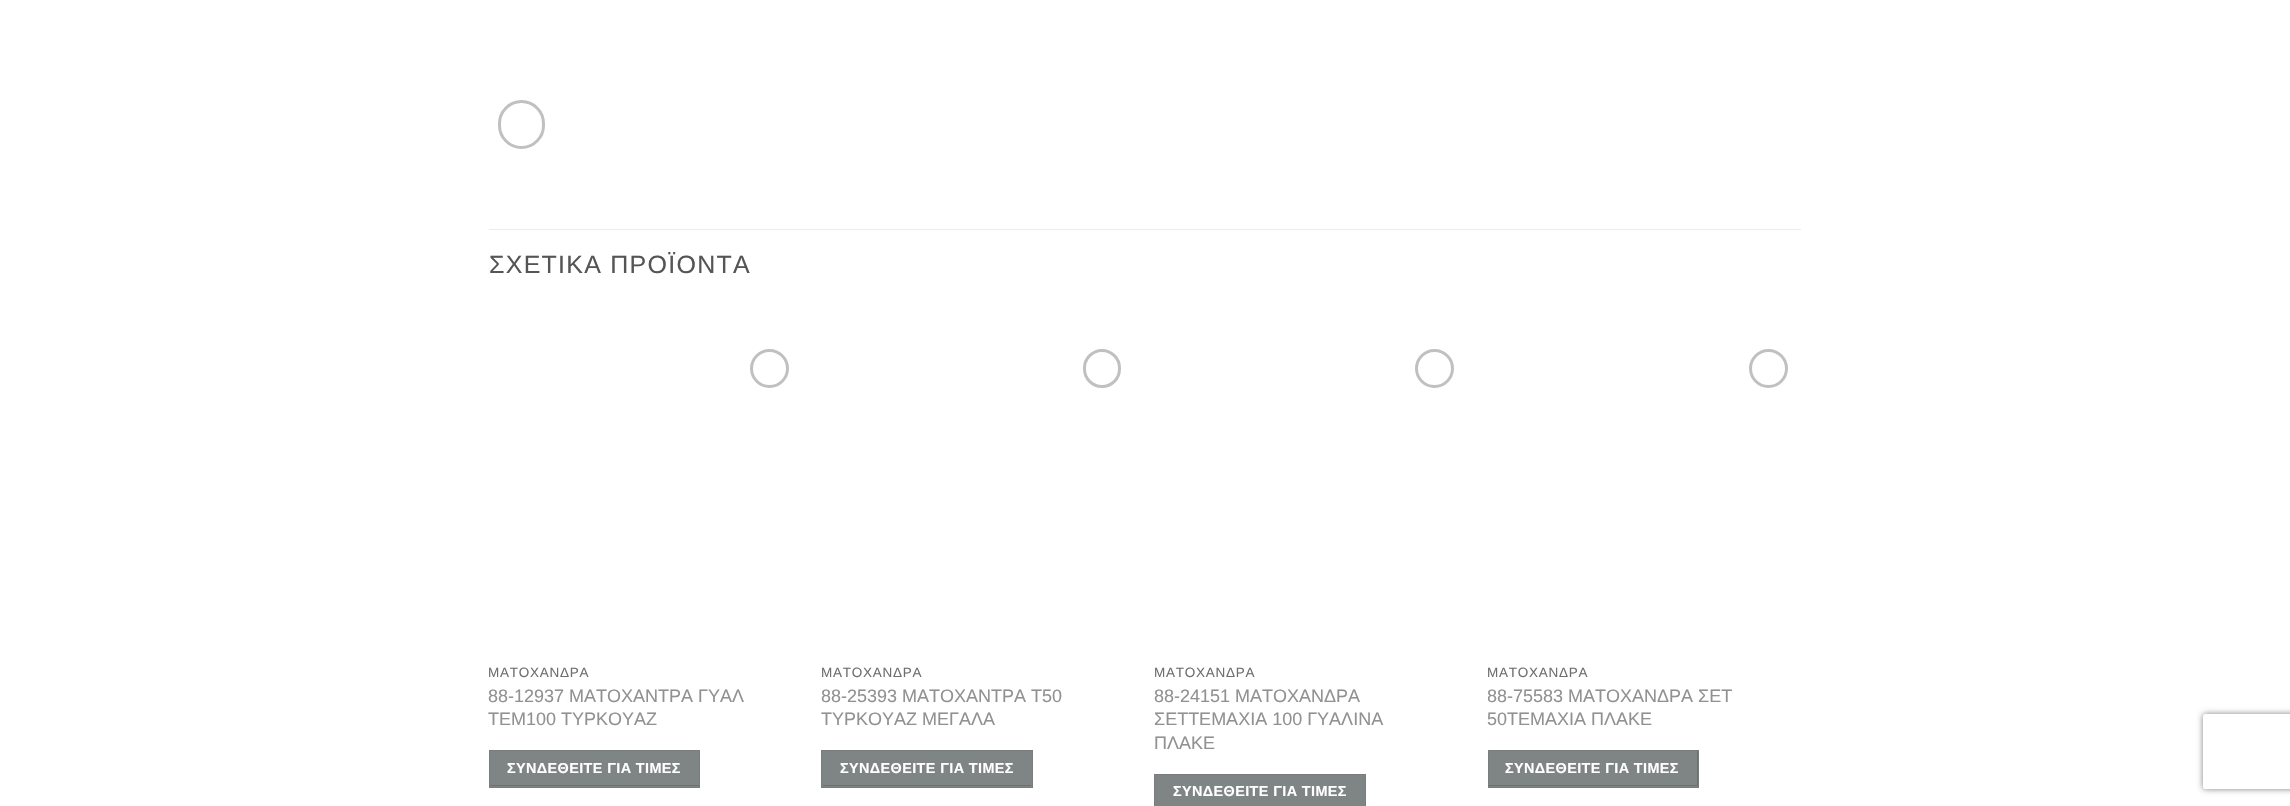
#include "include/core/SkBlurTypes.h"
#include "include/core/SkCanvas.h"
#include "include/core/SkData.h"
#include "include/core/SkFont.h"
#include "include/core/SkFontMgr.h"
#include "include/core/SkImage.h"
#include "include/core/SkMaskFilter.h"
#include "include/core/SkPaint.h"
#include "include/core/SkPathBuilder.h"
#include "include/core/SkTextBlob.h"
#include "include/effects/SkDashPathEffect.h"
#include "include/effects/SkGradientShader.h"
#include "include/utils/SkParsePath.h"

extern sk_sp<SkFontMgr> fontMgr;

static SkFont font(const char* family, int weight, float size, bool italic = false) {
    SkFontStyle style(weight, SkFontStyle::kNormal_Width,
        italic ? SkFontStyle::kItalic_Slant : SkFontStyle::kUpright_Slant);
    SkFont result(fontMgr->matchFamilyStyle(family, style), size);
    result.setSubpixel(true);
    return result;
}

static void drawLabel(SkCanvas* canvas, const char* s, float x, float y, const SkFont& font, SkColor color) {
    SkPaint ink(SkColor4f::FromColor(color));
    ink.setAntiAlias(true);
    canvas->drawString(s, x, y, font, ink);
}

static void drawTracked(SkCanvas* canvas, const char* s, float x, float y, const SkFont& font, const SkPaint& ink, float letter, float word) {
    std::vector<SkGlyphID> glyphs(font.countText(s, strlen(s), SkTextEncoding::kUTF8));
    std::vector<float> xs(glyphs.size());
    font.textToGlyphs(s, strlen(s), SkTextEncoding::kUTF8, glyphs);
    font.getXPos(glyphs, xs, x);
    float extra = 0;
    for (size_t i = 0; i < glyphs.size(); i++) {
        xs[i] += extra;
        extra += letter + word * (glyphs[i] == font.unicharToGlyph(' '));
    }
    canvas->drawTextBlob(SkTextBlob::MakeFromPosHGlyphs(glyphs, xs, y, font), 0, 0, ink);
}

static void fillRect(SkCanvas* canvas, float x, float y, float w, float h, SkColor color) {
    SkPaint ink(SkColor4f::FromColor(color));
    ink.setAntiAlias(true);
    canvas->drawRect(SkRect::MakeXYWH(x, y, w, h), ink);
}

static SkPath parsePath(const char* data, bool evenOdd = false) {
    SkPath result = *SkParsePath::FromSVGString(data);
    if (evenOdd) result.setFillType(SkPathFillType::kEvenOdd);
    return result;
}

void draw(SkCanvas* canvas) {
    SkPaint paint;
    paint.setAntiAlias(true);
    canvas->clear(0xFFFFFFFF);
    paint.setStroke(true);
    paint.setStrokeWidth(3);
    paint.setColor(0xFFC0C0C0);
    canvas->drawRoundRect(SkRect::MakeXYWH(499.5f, 101.5f, 44, 46), 22, 22, paint);
    fillRect(canvas, 489, 229, 1312, 1, 0xFFECECEC);
    SkFont font1 = font("Liberation Sans", 400, 25);
    paint.setStroke(false);
    paint.setColor(0xFF555555);
    drawTracked(canvas, "ΣΧΕΤΙΚΑ ΠΡΟΪΟΝΤΑ", 489, 273, font1, paint, 1.25f, 0);
    paint.setStroke(true);
    paint.setColor(0xFFC0C0C0);
    canvas->drawCircle(769.5f, 368.5f, 18, paint);
    SkFont font2 = font("Liberation Sans", 400, 13.5f);
    paint.setStroke(false);
    paint.setColor(0xFF6E6E6E);
    drawTracked(canvas, "ΜΑΤΟΧΑΝΔΡΑ", 488, 677, font2, paint, 0.75f, 0);
    SkFont font3 = font("Liberation Sans", 400, 18);
    drawLabel(canvas, "88-12937 ΜΑΤΟΧΑΝΤΡΑ ΓΥΑΛ", 488, 702, font3, 0xFF919191);
    drawLabel(canvas, "ΤΕΜ100 ΤΥΡΚΟΥΑΖ", 488, 725, font3, 0xFF919191);
    paint.setColor(0xFF7F8484);
    canvas->drawRect(SkRect::MakeXYWH(489.5f, 750.5f, 210, 37), paint);
    paint.setStroke(true);
    paint.setStrokeWidth(1);
    paint.setColor(0xFF797D7D);
    canvas->drawRect(SkRect::MakeXYWH(489.5f, 750.5f, 210, 37), paint);
    SkFont font4 = font("Liberation Sans", 700, 14.4f);
    paint.setStroke(false);
    paint.setColor(0xFFFFFFFF);
    drawTracked(canvas, "ΣΥΝΔΕΘΕΙΤΕ ΓΙΑ ΤΙΜΕΣ", 507, 773, font4, paint, 0.4f, 0);
    canvas->save();
    canvas->clipRect(SkRect::MakeXYWH(490, 751, 209, 35));
    paint.setColor(0xFF6C7070);
    canvas->drawPath(parsePath("M366 628H822V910H366ZM490 750H699V785H490Z", true), paint);
    canvas->restore();
    paint.setStroke(true);
    paint.setStrokeWidth(3);
    paint.setColor(0xFFC0C0C0);
    canvas->drawRoundRect(SkRect::MakeXYWH(1084.5f, 350.5f, 35, 36), 17.5f, 17.5f, paint);
    paint.setStroke(false);
    paint.setColor(0xFF6E6E6E);
    drawTracked(canvas, "ΜΑΤΟΧΑΝΔΡΑ", 821, 677, font2, paint, 0.75f, 0);
    drawLabel(canvas, "88-25393 ΜΑΤΟΧΑΝΤΡΑ Τ50", 821, 702, font3, 0xFF919191);
    drawLabel(canvas, "ΤΥΡΚΟΥΑΖ ΜΕΓΑΛΑ", 821, 725, font3, 0xFF919191);
    paint.setColor(0xFF7F8484);
    canvas->drawRect(SkRect::MakeXYWH(821.5f, 750.5f, 211, 37), paint);
    paint.setStroke(true);
    paint.setStrokeWidth(1);
    paint.setColor(0xFF797D7D);
    canvas->drawRect(SkRect::MakeXYWH(821.5f, 750.5f, 211, 37), paint);
    paint.setStroke(false);
    paint.setColor(0xFFFFFFFF);
    drawTracked(canvas, "ΣΥΝΔΕΘΕΙΤΕ ΓΙΑ ΤΙΜΕΣ", 840, 773, font4, paint, 0.4f, 0);
    canvas->save();
    canvas->clipRect(SkRect::MakeXYWH(823, 751, 208, 35));
    paint.setColor(0xFF6C7070);
    canvas->drawPath(parsePath("M699 628H1155V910H699ZM822 750H1031V785H822Z", true), paint);
    canvas->restore();
    paint.setStroke(true);
    paint.setStrokeWidth(3);
    paint.setColor(0xFFC0C0C0);
    canvas->drawCircle(1434.5f, 368.5f, 18, paint);
    paint.setStroke(false);
    paint.setColor(0xFF6E6E6E);
    drawTracked(canvas, "ΜΑΤΟΧΑΝΔΡΑ", 1154, 677, font2, paint, 0.75f, 0);
    drawLabel(canvas, "88-24151 ΜΑΤΟΧΑΝΔΡΑ", 1154, 702, font3, 0xFF919191);
    drawLabel(canvas, "ΣΕΤΤΕΜΑΧΙΑ 100 ΓΥΑΛΙΝΑ", 1154, 725, font3, 0xFF919191);
    drawLabel(canvas, "ΠΛΑΚΕ", 1154, 749, font3, 0xFF919191);
    paint.setColor(0xFF7F8484);
    canvas->drawRect(SkRect::MakeXYWH(1154.5f, 774.5f, 211, 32), paint);
    paint.setStroke(true);
    paint.setStrokeWidth(1);
    paint.setColor(0xFF797D7D);
    canvas->drawRect(SkRect::MakeXYWH(1154.5f, 774.5f, 211, 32), paint);
    paint.setStroke(false);
    paint.setColor(0xFFFFFFFF);
    drawTracked(canvas, "ΣΥΝΔΕΘΕΙΤΕ ΓΙΑ ΤΙΜΕΣ", 1173, 796, font4, paint, 0.4f, 0);
    paint.setStroke(true);
    paint.setStrokeWidth(3);
    paint.setColor(0xFFC0C0C0);
    canvas->drawCircle(1768.5f, 368.5f, 18, paint);
    paint.setStroke(false);
    paint.setColor(0xFF6E6E6E);
    drawTracked(canvas, "ΜΑΤΟΧΑΝΔΡΑ", 1487, 677, font2, paint, 0.75f, 0);
    canvas->save();
    canvas->clipRect(SkRect::MakeXYWH(1488, 664, 307, 72));
    drawLabel(canvas, "88-75583 ΜΑΤΟΧΑΝΔΡΑ ΣΕΤ", 1487, 702, font3, 0xFF919191);
    canvas->restore();
    drawLabel(canvas, "50ΤΕΜΑΧΙΑ ΠΛΑΚΕ", 1487, 725, font3, 0xFF919191);
    paint.setColor(0xFF7F8484);
    canvas->drawRect(SkRect::MakeXYWH(1488.5f, 750.5f, 210, 37), paint);
    paint.setStroke(true);
    paint.setStrokeWidth(1);
    paint.setColor(0xFF797D7D);
    canvas->drawRect(SkRect::MakeXYWH(1488.5f, 750.5f, 210, 37), paint);
    paint.setStroke(false);
    paint.setColor(0xFFFFFFFF);
    drawTracked(canvas, "ΣΥΝΔΕΘΕΙΤΕ ΓΙΑ ΤΙΜΕΣ", 1505, 773, font4, paint, 0.4f, 0);
    canvas->save();
    canvas->clipRect(SkRect::MakeXYWH(1489, 751, 209, 35));
    paint.setColor(0xFF6C7070);
    canvas->drawPath(parsePath("M1365 628H1821V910H1365ZM1489 750H1697V785H1489Z", true), paint);
    canvas->restore();
    canvas->save();
    canvas->clipPath(parsePath("M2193 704H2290V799H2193ZM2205.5 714H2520.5C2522 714 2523 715 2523 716.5V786.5C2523 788 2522 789 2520.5 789H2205.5C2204 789 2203 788 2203 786.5V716.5C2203 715 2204 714 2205.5 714Z", true), true);
    paint.setColor(0xFF808080);
    paint.setMaskFilter(SkMaskFilter::MakeBlur(kNormal_SkBlurStyle, 3));
    canvas->drawRoundRect(SkRect::MakeXYWH(2203, 714, 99, 75), 2.5f, 2.5f, paint);
    paint.setMaskFilter(nullptr);
    canvas->restore();
}
